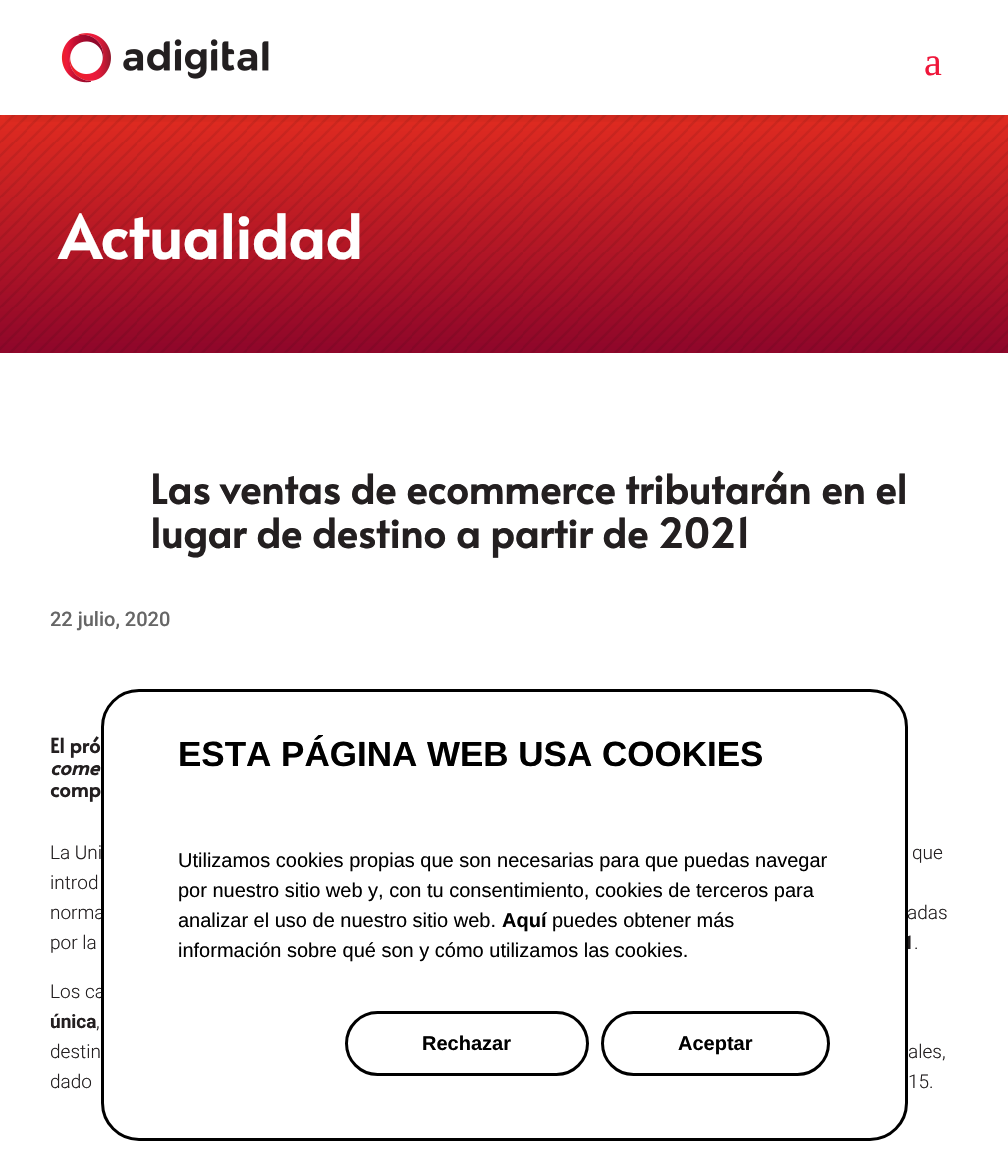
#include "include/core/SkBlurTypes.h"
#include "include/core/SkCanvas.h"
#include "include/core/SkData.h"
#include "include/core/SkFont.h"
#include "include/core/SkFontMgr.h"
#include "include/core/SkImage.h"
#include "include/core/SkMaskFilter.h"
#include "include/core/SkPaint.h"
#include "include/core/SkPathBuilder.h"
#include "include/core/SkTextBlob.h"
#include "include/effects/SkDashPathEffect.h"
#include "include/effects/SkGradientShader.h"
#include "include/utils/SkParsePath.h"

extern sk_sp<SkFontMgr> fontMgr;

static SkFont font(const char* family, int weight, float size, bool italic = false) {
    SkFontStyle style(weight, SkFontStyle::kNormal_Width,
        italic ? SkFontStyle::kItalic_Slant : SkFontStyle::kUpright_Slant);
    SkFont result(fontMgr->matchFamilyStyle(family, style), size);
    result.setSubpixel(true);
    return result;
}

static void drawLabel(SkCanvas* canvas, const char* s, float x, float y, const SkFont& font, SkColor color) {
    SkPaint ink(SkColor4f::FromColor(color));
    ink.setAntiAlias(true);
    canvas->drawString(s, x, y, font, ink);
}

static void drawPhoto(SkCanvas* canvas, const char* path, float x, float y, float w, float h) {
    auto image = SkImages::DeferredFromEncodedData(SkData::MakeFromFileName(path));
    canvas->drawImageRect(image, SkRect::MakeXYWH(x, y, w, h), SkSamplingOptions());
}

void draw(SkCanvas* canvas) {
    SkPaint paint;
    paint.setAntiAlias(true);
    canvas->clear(0xFFFFFFFF);
    {
        const SkColor colors[] = {0xFFE02B20, 0xFF8E062A};
        const float stops[] = {0, 1};
        const SkPoint ends[] = {{504, 115}, {504, 353}};
        paint.setShader(SkGradientShader::MakeLinear(ends, colors, stops, 2, SkTileMode::kClamp));
        paint.setAlpha(255);
    }
    canvas->drawRect(SkRect::MakeXYWH(0, 115, 1008, 238), paint);
    drawPhoto(canvas, "assets/img2.png", 0, 115, 1008, 238);
    canvas->save();
    canvas->clipRect(SkRect::MakeXYWH(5, 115, 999, 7));
    paint.setShader(nullptr);
    paint.setColor(0x4D000000);
    paint.setMaskFilter(SkMaskFilter::MakeBlur(kNormal_SkBlurStyle, 7.5f));
    canvas->drawRect(SkRect::MakeXYWH(10, 16, 989, 95), paint);
    paint.setMaskFilter(nullptr);
    canvas->restore();
    drawPhoto(canvas, "assets/img1.png", 61, 33, 208, 50);
    SkFont font1 = font("Liberation Serif", 400, 40);
    drawLabel(canvas, "a", 924, 75, font1, 0xFFEF163A);
    SkFont font2 = font("Alata", 700, 60);
    drawLabel(canvas, "Actualidad", 59, 259, font2, 0xFFFFFFFF);
    SkFont font3 = font("Alata", 700, 40);
    drawLabel(canvas, "Las ventas de ecommerce tributarán en el", 150, 504, font3, 0xFF231F20);
    drawLabel(canvas, "lugar de destino a partir de 2021", 150, 548, font3, 0xFF231F20);
    SkFont font4 = font("Roboto", 500, 20);
    drawLabel(canvas, "22 julio, 2020", 50, 626, font4, 0xFF666666);
    SkFont font5 = font("Alata", 700, 20);
    drawLabel(canvas, "El pró", 50, 753, font5, 0xFF231F20);
    SkFont font6 = font("Alata", 700, 20, true);
    drawLabel(canvas, "come", 50, 775, font6, 0xFF231F20);
    drawLabel(canvas, "comp", 50, 797, font5, 0xFF231F20);
    SkFont font7 = font("Roboto", 300, 19);
    drawLabel(canvas, "La Uni", 50, 859, font7, 0xFF231F20);
    drawLabel(canvas, "que", 912, 859, font7, 0xFF231F20);
    drawLabel(canvas, "introd", 50, 889, font7, 0xFF231F20);
    drawLabel(canvas, "norma", 50, 919, font7, 0xFF231F20);
    drawLabel(canvas, "adas", 907, 919, font7, 0xFF231F20);
    drawLabel(canvas, "por la", 50, 949, font7, 0xFF231F20);
    SkFont font8 = font("Roboto", 700, 19);
    drawLabel(canvas, "1", 903, 949, font8, 0xFF231F20);
    drawLabel(canvas, ".", 914, 949, font7, 0xFF231F20);
    drawLabel(canvas, "Los ca", 50, 998, font7, 0xFF231F20);
    drawLabel(canvas, "única", 50, 1028, font8, 0xFF231F20);
    drawLabel(canvas, ",", 96, 1028, font7, 0xFF231F20);
    drawLabel(canvas, "destin", 50, 1058, font7, 0xFF231F20);
    drawLabel(canvas, "ales,", 908, 1058, font7, 0xFF231F20);
    drawLabel(canvas, "dado", 50, 1088, font7, 0xFF231F20);
    drawLabel(canvas, "15.", 908, 1088, font7, 0xFF231F20);
    paint.setColor(0xFFFFFFFF);
    canvas->drawRoundRect(SkRect::MakeXYWH(102.5f, 690.5f, 804, 449), 36.5f, 36.5f, paint);
    paint.setStroke(true);
    paint.setStrokeWidth(3);
    paint.setColor(0xFF000000);
    canvas->drawRoundRect(SkRect::MakeXYWH(102.5f, 690.5f, 804, 449), 36.5f, 36.5f, paint);
    SkFont font9 = font("Liberation Sans", 700, 35);
    drawLabel(canvas, "ESTA PÁGINA WEB USA COOKIES", 178, 766, font9, 0xFF000000);
    SkFont font10 = font("Liberation Sans", 400, 20);
    drawLabel(canvas, "Utilizamos cookies propias que son necesarias para que puedas navegar", 178, 867, font10, 0xFF000000);
    drawLabel(canvas, "por nuestro sitio web y, con tu consentimiento, cookies de terceros para", 178, 897, font10, 0xFF000000);
    drawLabel(canvas, "analizar el uso de nuestro sitio web.", 178, 927, font10, 0xFF000000);
    SkFont font11 = font("Liberation Sans", 700, 20);
    drawLabel(canvas, "Aquí", 502, 927, font11, 0xFF000000);
    drawLabel(canvas, "puedes obtener más", 552, 927, font10, 0xFF000000);
    drawLabel(canvas, "información sobre qué son y cómo utilizamos las cookies.", 178, 957, font10, 0xFF000000);
    canvas->drawRoundRect(SkRect::MakeXYWH(346.5f, 1012.5f, 241, 62), 31, 31, paint);
    drawLabel(canvas, "Rechazar", 422, 1050, font11, 0xFF000000);
    canvas->drawRoundRect(SkRect::MakeXYWH(602.5f, 1012.5f, 226, 62), 31, 31, paint);
    drawLabel(canvas, "Aceptar", 678, 1050, font11, 0xFF000000);
}
